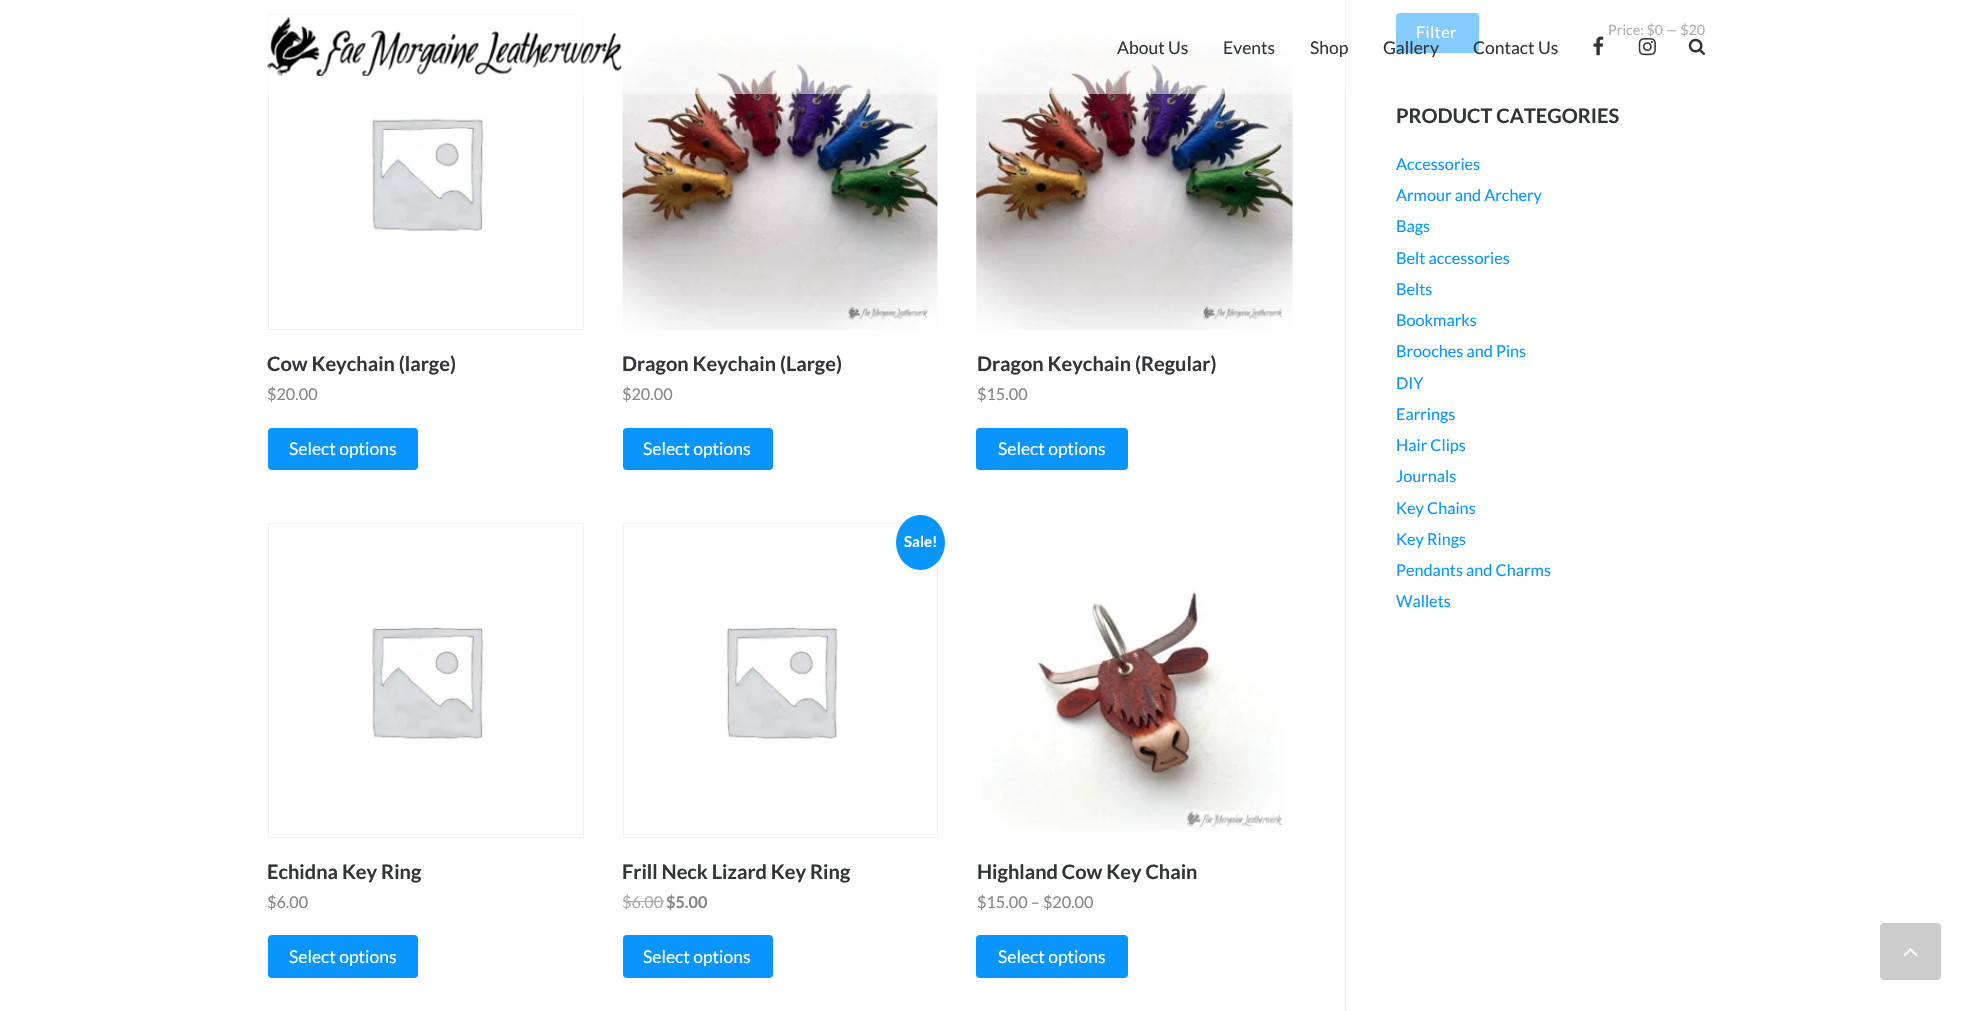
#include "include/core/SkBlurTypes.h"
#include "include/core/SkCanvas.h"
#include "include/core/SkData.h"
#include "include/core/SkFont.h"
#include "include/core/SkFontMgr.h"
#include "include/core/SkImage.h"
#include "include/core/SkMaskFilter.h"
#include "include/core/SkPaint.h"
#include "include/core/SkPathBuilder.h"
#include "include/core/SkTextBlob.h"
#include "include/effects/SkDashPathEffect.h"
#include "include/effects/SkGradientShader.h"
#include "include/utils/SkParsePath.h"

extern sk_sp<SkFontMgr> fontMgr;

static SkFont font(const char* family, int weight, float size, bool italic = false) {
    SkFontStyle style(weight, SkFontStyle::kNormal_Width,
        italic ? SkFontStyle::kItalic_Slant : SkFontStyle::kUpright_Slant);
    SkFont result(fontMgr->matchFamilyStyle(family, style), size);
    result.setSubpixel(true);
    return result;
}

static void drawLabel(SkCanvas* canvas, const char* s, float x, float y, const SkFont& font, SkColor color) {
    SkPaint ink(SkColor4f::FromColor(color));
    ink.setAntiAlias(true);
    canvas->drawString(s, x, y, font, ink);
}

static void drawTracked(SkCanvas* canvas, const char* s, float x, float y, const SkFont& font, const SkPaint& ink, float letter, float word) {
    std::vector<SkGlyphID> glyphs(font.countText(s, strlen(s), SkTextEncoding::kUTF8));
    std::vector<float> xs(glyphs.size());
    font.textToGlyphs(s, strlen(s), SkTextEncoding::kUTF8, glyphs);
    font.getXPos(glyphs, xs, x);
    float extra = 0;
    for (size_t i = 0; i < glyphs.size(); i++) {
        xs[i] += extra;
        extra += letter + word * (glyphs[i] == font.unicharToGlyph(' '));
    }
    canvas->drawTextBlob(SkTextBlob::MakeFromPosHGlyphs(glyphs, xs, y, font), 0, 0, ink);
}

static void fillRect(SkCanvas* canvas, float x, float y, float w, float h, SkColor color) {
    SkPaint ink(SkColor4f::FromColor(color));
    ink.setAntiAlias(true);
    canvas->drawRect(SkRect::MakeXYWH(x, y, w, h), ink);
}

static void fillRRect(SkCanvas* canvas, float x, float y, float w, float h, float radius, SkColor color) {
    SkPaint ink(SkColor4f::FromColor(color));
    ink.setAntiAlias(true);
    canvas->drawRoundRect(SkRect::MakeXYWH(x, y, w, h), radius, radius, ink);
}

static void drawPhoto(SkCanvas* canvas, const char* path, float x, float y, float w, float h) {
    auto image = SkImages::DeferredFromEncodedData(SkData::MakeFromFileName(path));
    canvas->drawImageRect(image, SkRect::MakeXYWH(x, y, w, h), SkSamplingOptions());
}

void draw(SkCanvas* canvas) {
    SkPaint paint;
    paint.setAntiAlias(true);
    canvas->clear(0xFFFFFFFF);
    fillRect(canvas, 1345, 0, 1, 1011, 0xFFEAEAEB);
    paint.setStroke(true);
    paint.setStrokeWidth(1);
    paint.setColor(0xFFF2F2F2);
    canvas->drawRect(SkRect::MakeXYWH(268.5f, 14.5f, 315, 315), paint);
    drawPhoto(canvas, "assets/img1.png", 372, 118, 114, 114);
    SkFont font1 = font("Lato", 700, 20);
    drawLabel(canvas, "Cow Keychain (large)", 267, 371, font1, 0xFF313539);
    SkFont font2 = font("Lato", 400, 16.25f);
    drawLabel(canvas, "$20.00", 267, 400, font2, 0xFF838588);
    fillRRect(canvas, 268, 428, 150, 42, 4, 0xFF0896FE);
    SkFont font3 = font("Lato", 400, 17.5f);
    drawLabel(canvas, "Select options", 289, 455, font3, 0xFFFFFFFF);
    drawPhoto(canvas, "assets/img2.png", 622, 33, 316, 297);
    drawLabel(canvas, "Dragon Keychain (Large)", 622, 371, font1, 0xFF313539);
    drawLabel(canvas, "$20.00", 622, 400, font2, 0xFF838588);
    fillRRect(canvas, 623, 428, 150, 42, 4, 0xFF0896FE);
    drawLabel(canvas, "Select options", 643, 455, font3, 0xFFFFFFFF);
    drawPhoto(canvas, "assets/img3.png", 976, 33, 317, 297);
    drawLabel(canvas, "Dragon Keychain (Regular)", 977, 371, font1, 0xFF313539);
    drawLabel(canvas, "$15.00", 977, 400, font2, 0xFF838588);
    fillRRect(canvas, 976, 428, 152, 42, 4, 0xFF0896FE);
    drawLabel(canvas, "Select options", 998, 455, font3, 0xFFFFFFFF);
    canvas->drawRect(SkRect::MakeXYWH(268.5f, 523.5f, 315, 314), paint);
    drawPhoto(canvas, "assets/img4.png", 372, 626, 114, 114);
    drawLabel(canvas, "Echidna Key Ring", 267, 879, font1, 0xFF313539);
    drawLabel(canvas, "$6.00", 267, 908, font2, 0xFF838588);
    fillRRect(canvas, 268, 935, 150, 43, 4, 0xFF0896FE);
    drawLabel(canvas, "Select options", 289, 963, font3, 0xFFFFFFFF);
    canvas->drawRect(SkRect::MakeXYWH(623.5f, 523.5f, 314, 314), paint);
    drawPhoto(canvas, "assets/img5.png", 726, 626, 112, 114);
    paint.setStroke(false);
    paint.setColor(0xFF0896FE);
    canvas->drawOval(SkRect::MakeXYWH(896, 515, 49, 55), paint);
    SkFont font4 = font("Lato", 700, 15);
    drawLabel(canvas, "Sale!", 904, 547, font4, 0xFFFFFFFF);
    drawLabel(canvas, "Frill Neck Lizard Key Ring", 622, 879, font1, 0xFF313539);
    drawLabel(canvas, "$6.00", 622, 908, font2, 0xFFA8AAAC);
    fillRect(canvas, 623, 901, 41, 1, 0xFFA8AAAC);
    SkFont font5 = font("Lato", 700, 16.25f);
    drawLabel(canvas, "$5.00", 666, 908, font5, 0xFF838588);
    fillRRect(canvas, 623, 935, 150, 43, 4, 0xFF0896FE);
    drawLabel(canvas, "Select options", 643, 963, font3, 0xFFFFFFFF);
    drawPhoto(canvas, "assets/img6.png", 983, 590, 301, 242);
    drawLabel(canvas, "Highland Cow Key Chain", 977, 879, font1, 0xFF313539);
    drawLabel(canvas, "$15.00 – $20.00", 977, 908, font2, 0xFF838588);
    fillRRect(canvas, 976, 935, 152, 43, 4, 0xFF0896FE);
    drawLabel(canvas, "Select options", 998, 963, font3, 0xFFFFFFFF);
    fillRRect(canvas, 1396, 13, 83, 40, 4, 0xFF0896FE);
    SkFont font6 = font("Lato", 400, 16);
    paint.setColor(0xFFFFFFFF);
    drawTracked(canvas, "Filter", 1416, 38, font6, paint, 0.5f, 0);
    SkFont font7 = font("Lato", 400, 14.25f);
    drawLabel(canvas, "Price: $0 — $20", 1608, 35, font7, 0xFF5A5D60);
    drawLabel(canvas, "PRODUCT CATEGORIES", 1396, 123, font1, 0xFF313539);
    drawLabel(canvas, "Accessories", 1396, 170, font2, 0xFF0896FE);
    drawLabel(canvas, "Armour and Archery", 1396, 201, font2, 0xFF0896FE);
    drawLabel(canvas, "Bags", 1396, 232, font2, 0xFF0896FE);
    drawLabel(canvas, "Belt accessories", 1396, 264, font2, 0xFF0896FE);
    drawLabel(canvas, "Belts", 1396, 295, font2, 0xFF0896FE);
    drawLabel(canvas, "Bookmarks", 1396, 326, font2, 0xFF0896FE);
    drawLabel(canvas, "Brooches and Pins", 1396, 357, font2, 0xFF0896FE);
    drawLabel(canvas, "DIY", 1396, 389, font2, 0xFF0896FE);
    drawLabel(canvas, "Earrings", 1396, 420, font2, 0xFF0896FE);
    drawLabel(canvas, "Hair Clips", 1396, 451, font2, 0xFF0896FE);
    drawLabel(canvas, "Journals", 1396, 482, font2, 0xFF0896FE);
    drawLabel(canvas, "Key Chains", 1396, 514, font2, 0xFF0896FE);
    drawLabel(canvas, "Key Rings", 1396, 545, font2, 0xFF0896FE);
    drawLabel(canvas, "Pendants and Charms", 1396, 576, font2, 0xFF0896FE);
    drawLabel(canvas, "Wallets", 1396, 607, font2, 0xFF0896FE);
    fillRect(canvas, 268, 0, 1437, 94, 0x80FFFFFF);
    drawPhoto(canvas, "assets/img7.png", 267, 17, 355, 59);
    drawLabel(canvas, "About Us", 1117, 54, font3, 0xFF313539);
    drawLabel(canvas, "Events", 1223, 54, font3, 0xFF313539);
    drawLabel(canvas, "Shop", 1310, 54, font3, 0xFF313539);
    drawLabel(canvas, "Gallery", 1383, 54, font3, 0xFF313539);
    drawLabel(canvas, "Contact Us", 1473, 54, font3, 0xFF313539);
    drawPhoto(canvas, "assets/img8.png", 1593, 36, 11, 20);
    drawPhoto(canvas, "assets/img9.png", 1638, 38, 18, 18);
    drawPhoto(canvas, "assets/img10.png", 1688, 38, 17, 17);
    fillRRect(canvas, 1880, 923, 61, 57, 4, 0xFFCCCCCC);
    drawPhoto(canvas, "assets/img11.png", 1903, 948, 15, 9);
}
